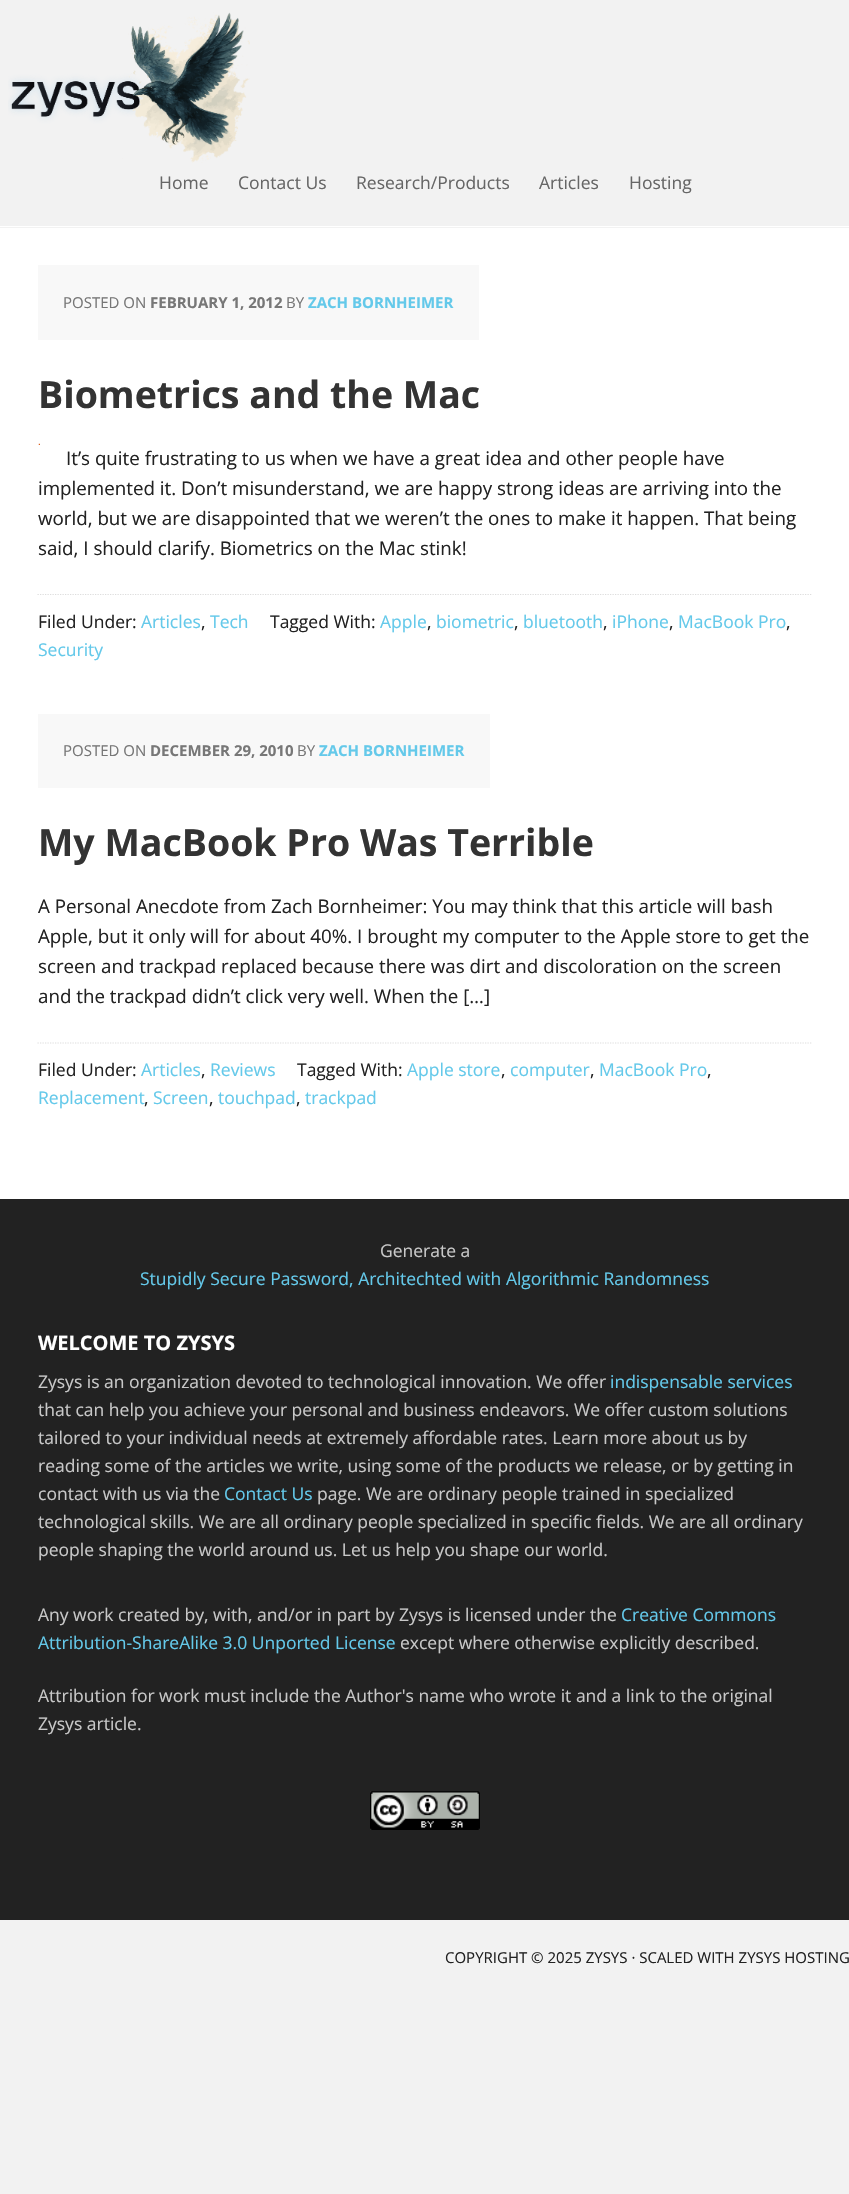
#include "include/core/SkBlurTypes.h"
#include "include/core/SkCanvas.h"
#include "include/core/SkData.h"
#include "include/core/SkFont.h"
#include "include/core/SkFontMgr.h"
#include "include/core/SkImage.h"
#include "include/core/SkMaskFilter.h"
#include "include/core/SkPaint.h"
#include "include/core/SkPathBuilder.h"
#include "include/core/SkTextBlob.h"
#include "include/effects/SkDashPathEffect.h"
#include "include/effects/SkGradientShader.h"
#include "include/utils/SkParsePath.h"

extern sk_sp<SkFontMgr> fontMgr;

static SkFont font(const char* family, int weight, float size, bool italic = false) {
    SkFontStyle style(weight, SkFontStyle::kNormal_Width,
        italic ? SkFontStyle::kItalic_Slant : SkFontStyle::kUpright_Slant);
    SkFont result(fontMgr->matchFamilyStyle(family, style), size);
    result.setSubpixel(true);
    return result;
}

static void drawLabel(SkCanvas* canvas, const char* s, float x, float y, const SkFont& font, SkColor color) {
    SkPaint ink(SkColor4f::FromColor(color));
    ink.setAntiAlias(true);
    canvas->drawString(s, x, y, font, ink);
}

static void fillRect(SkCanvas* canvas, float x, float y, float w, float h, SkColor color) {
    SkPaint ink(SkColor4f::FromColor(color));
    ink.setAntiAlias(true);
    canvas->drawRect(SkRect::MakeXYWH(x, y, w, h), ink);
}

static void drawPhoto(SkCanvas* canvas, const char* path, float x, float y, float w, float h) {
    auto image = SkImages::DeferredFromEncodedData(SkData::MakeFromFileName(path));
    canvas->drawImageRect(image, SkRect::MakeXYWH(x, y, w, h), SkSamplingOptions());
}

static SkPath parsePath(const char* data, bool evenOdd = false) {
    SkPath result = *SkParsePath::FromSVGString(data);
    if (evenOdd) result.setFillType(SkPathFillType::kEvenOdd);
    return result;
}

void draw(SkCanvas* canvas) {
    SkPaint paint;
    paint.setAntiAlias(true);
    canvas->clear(0xFFF2F2F2);
    drawPhoto(canvas, "assets/img1.png", 8, 12, 242, 151);
    SkFont font1 = font("Open Sans", 400, 17.5f);
    drawLabel(canvas, "Home", 159, 189, font1, 0xFF666666);
    drawLabel(canvas, "Contact Us", 238, 189, font1, 0xFF666666);
    drawLabel(canvas, "Research/Products", 356, 189, font1, 0xFF666666);
    drawLabel(canvas, "Articles", 539, 189, font1, 0xFF666666);
    drawLabel(canvas, "Hosting", 629, 189, font1, 0xFF666666);
    paint.setStroke(true);
    paint.setStrokeWidth(1);
    paint.setColor(0xFFFFFFFF);
    canvas->drawRect(SkRect::MakeXYWH(-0.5f, 226.5f, 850, 973), paint);
    fillRect(canvas, 0, 228, 849, 971, 0xFFFFFFFF);
    fillRect(canvas, 38, 265, 441, 75, 0xFFF8F8F8);
    SkFont font2 = font("Open Sans", 400, 15);
    drawLabel(canvas, "POSTED ON", 63, 308, font2, 0xFF777777);
    SkFont font3 = font("Open Sans", 700, 15);
    drawLabel(canvas, "FEBRUARY 1, 2012", 150, 308, font3, 0xFF777777);
    drawLabel(canvas, "BY", 286, 308, font2, 0xFF777777);
    drawLabel(canvas, "ZACH BORNHEIMER", 308, 308, font3, 0xFF64C9EA);
    SkFont font4 = font("Open Sans", 700, 37.5f);
    drawLabel(canvas, "Biometrics and the Mac", 38, 408, font4, 0xFF333333);
    drawPhoto(canvas, "assets/img2.png", 38, 443, 2, 2);
    SkFont font5 = font("Open Sans", 400, 18.75f);
    drawLabel(canvas, "It’s quite frustrating to us when we have a great idea and other people have", 66, 465, font5, 0xFF222222);
    drawLabel(canvas, "implemented it. Don’t misunderstand, we are happy strong ideas are arriving into the", 38, 495, font5, 0xFF222222);
    drawLabel(canvas, "world, but we are disappointed that we weren’t the ones to make it happen. That being", 38, 525, font5, 0xFF222222);
    drawLabel(canvas, "said, I should clarify. Biometrics on the Mac stink!", 38, 555, font5, 0xFF222222);
    paint.setStrokeWidth(1.2f);
    paint.setColor(0xFFDDDDDD);
    paint.setPathEffect(SkDashPathEffect::Make({{1.25f, 1.25f}}, 0));
    canvas->drawPath(parsePath("M37.5 594.5H812.5"), paint);
    paint.setPathEffect(nullptr);
    drawLabel(canvas, "Filed Under:", 38, 628, font1, 0xFF222222);
    drawLabel(canvas, "Articles", 141, 628, font1, 0xFF64C9EA);
    drawLabel(canvas, ",", 201, 628, font1, 0xFF222222);
    drawLabel(canvas, "Tech", 210, 628, font1, 0xFF64C9EA);
    drawLabel(canvas, "Tagged With:", 270, 628, font1, 0xFF222222);
    drawLabel(canvas, "Apple", 380, 628, font1, 0xFF64C9EA);
    drawLabel(canvas, ",", 427, 628, font1, 0xFF222222);
    drawLabel(canvas, "biometric", 436, 628, font1, 0xFF64C9EA);
    drawLabel(canvas, ",", 514, 628, font1, 0xFF222222);
    drawLabel(canvas, "bluetooth", 523, 628, font1, 0xFF64C9EA);
    drawLabel(canvas, ",", 603, 628, font1, 0xFF222222);
    drawLabel(canvas, "iPhone", 612, 628, font1, 0xFF64C9EA);
    drawLabel(canvas, ",", 669, 628, font1, 0xFF222222);
    drawLabel(canvas, "MacBook Pro", 678, 628, font1, 0xFF64C9EA);
    drawLabel(canvas, ",", 786, 628, font1, 0xFF222222);
    drawLabel(canvas, "Security", 38, 656, font1, 0xFF64C9EA);
    fillRect(canvas, 38, 714, 452, 74, 0xFFF8F8F8);
    drawLabel(canvas, "POSTED ON", 63, 756, font2, 0xFF777777);
    drawLabel(canvas, "DECEMBER 29, 2010", 150, 756, font3, 0xFF777777);
    drawLabel(canvas, "BY", 297, 756, font2, 0xFF777777);
    drawLabel(canvas, "ZACH BORNHEIMER", 319, 756, font3, 0xFF64C9EA);
    drawLabel(canvas, "My MacBook Pro Was Terrible", 38, 856, font4, 0xFF333333);
    drawLabel(canvas, "A Personal Anecdote from Zach Bornheimer: You may think that this article will bash", 38, 913, font5, 0xFF222222);
    drawLabel(canvas, "Apple, but it only will for about 40%. I brought my computer to the Apple store to get the", 38, 943, font5, 0xFF222222);
    drawLabel(canvas, "screen and trackpad replaced because there was dirt and discoloration on the screen", 38, 973, font5, 0xFF222222);
    drawLabel(canvas, "and the trackpad didn’t click very well. When the […]", 38, 1003, font5, 0xFF222222);
    paint.setPathEffect(SkDashPathEffect::Make({{1.25f, 1.25f}}, 0));
    canvas->drawPath(parsePath("M37.5 1043H812.5"), paint);
    paint.setPathEffect(nullptr);
    drawLabel(canvas, "Filed Under:", 38, 1076, font1, 0xFF222222);
    drawLabel(canvas, "Articles", 141, 1076, font1, 0xFF64C9EA);
    drawLabel(canvas, ",", 201, 1076, font1, 0xFF222222);
    drawLabel(canvas, "Reviews", 210, 1076, font1, 0xFF64C9EA);
    drawLabel(canvas, "Tagged With:", 297, 1076, font1, 0xFF222222);
    drawLabel(canvas, "Apple store", 407, 1076, font1, 0xFF64C9EA);
    drawLabel(canvas, ",", 501, 1076, font1, 0xFF222222);
    drawLabel(canvas, "computer", 510, 1076, font1, 0xFF64C9EA);
    drawLabel(canvas, ",", 590, 1076, font1, 0xFF222222);
    drawLabel(canvas, "MacBook Pro", 599, 1076, font1, 0xFF64C9EA);
    drawLabel(canvas, ",", 707, 1076, font1, 0xFF222222);
    drawLabel(canvas, "Replacement", 38, 1104, font1, 0xFF64C9EA);
    drawLabel(canvas, ",", 144, 1104, font1, 0xFF222222);
    drawLabel(canvas, "Screen", 153, 1104, font1, 0xFF64C9EA);
    drawLabel(canvas, ",", 209, 1104, font1, 0xFF222222);
    drawLabel(canvas, "touchpad", 218, 1104, font1, 0xFF64C9EA);
    drawLabel(canvas, ",", 296, 1104, font1, 0xFF222222);
    drawLabel(canvas, "trackpad", 305, 1104, font1, 0xFF64C9EA);
    fillRect(canvas, 0, 1199, 849, 721, 0xFF222222);
    drawLabel(canvas, "Generate a", 380, 1257, font1, 0xFFC8C8C8);
    drawLabel(canvas, "Stupidly Secure Password, Architechted with Algorithmic Randomness", 140, 1285, font1, 0xFF64C9EA);
    SkFont font6 = font("Open Sans", 700, 20);
    drawLabel(canvas, "WELCOME TO ZYSYS", 38, 1350, font6, 0xFFFFFFFF);
    drawLabel(canvas, "Zysys is an organization devoted to technological innovation. We offer", 38, 1388, font1, 0xFFC8C8C8);
    drawLabel(canvas, "indispensable services", 610, 1388, font1, 0xFF64C9EA);
    drawLabel(canvas, "that can help you achieve your personal and business endeavors. We offer custom solutions", 38, 1416, font1, 0xFFC8C8C8);
    drawLabel(canvas, "tailored to your individual needs at extremely affordable rates. Learn more about us by", 38, 1444, font1, 0xFFC8C8C8);
    drawLabel(canvas, "reading some of the articles we write, using some of the products we release, or by getting in", 38, 1472, font1, 0xFFC8C8C8);
    drawLabel(canvas, "contact with us via the", 38, 1500, font1, 0xFFC8C8C8);
    drawLabel(canvas, "Contact Us", 224, 1500, font1, 0xFF64C9EA);
    drawLabel(canvas, "page. We are ordinary people trained in specialized", 317, 1500, font1, 0xFFC8C8C8);
    drawLabel(canvas, "technological skills. We are all ordinary people specialized in specific fields. We are all ordinary", 38, 1528, font1, 0xFFC8C8C8);
    drawLabel(canvas, "people shaping the world around us. Let us help you shape our world.", 38, 1556, font1, 0xFFC8C8C8);
    drawLabel(canvas, "Any work created by, with, and/or in part by Zysys is licensed under the", 38, 1621, font1, 0xFFC8C8C8);
    drawLabel(canvas, "Creative Commons", 621, 1621, font1, 0xFF64C9EA);
    drawLabel(canvas, "Attribution-ShareAlike 3.0 Unported License", 38, 1649, font1, 0xFF64C9EA);
    drawLabel(canvas, "except where otherwise explicitly described.", 400, 1649, font1, 0xFFC8C8C8);
    drawLabel(canvas, "Attribution for work must include the Author's name who wrote it and a link to the original", 38, 1702, font1, 0xFFC8C8C8);
    drawLabel(canvas, "Zysys article.", 38, 1730, font1, 0xFFC8C8C8);
    drawPhoto(canvas, "assets/img3.png", 370, 1791, 110, 39);
    drawLabel(canvas, "COPYRIGHT © 2025 ZYSYS · SCALED WITH ZYSYS HOSTING", 445, 1963, font2, 0xFF222222);
}
